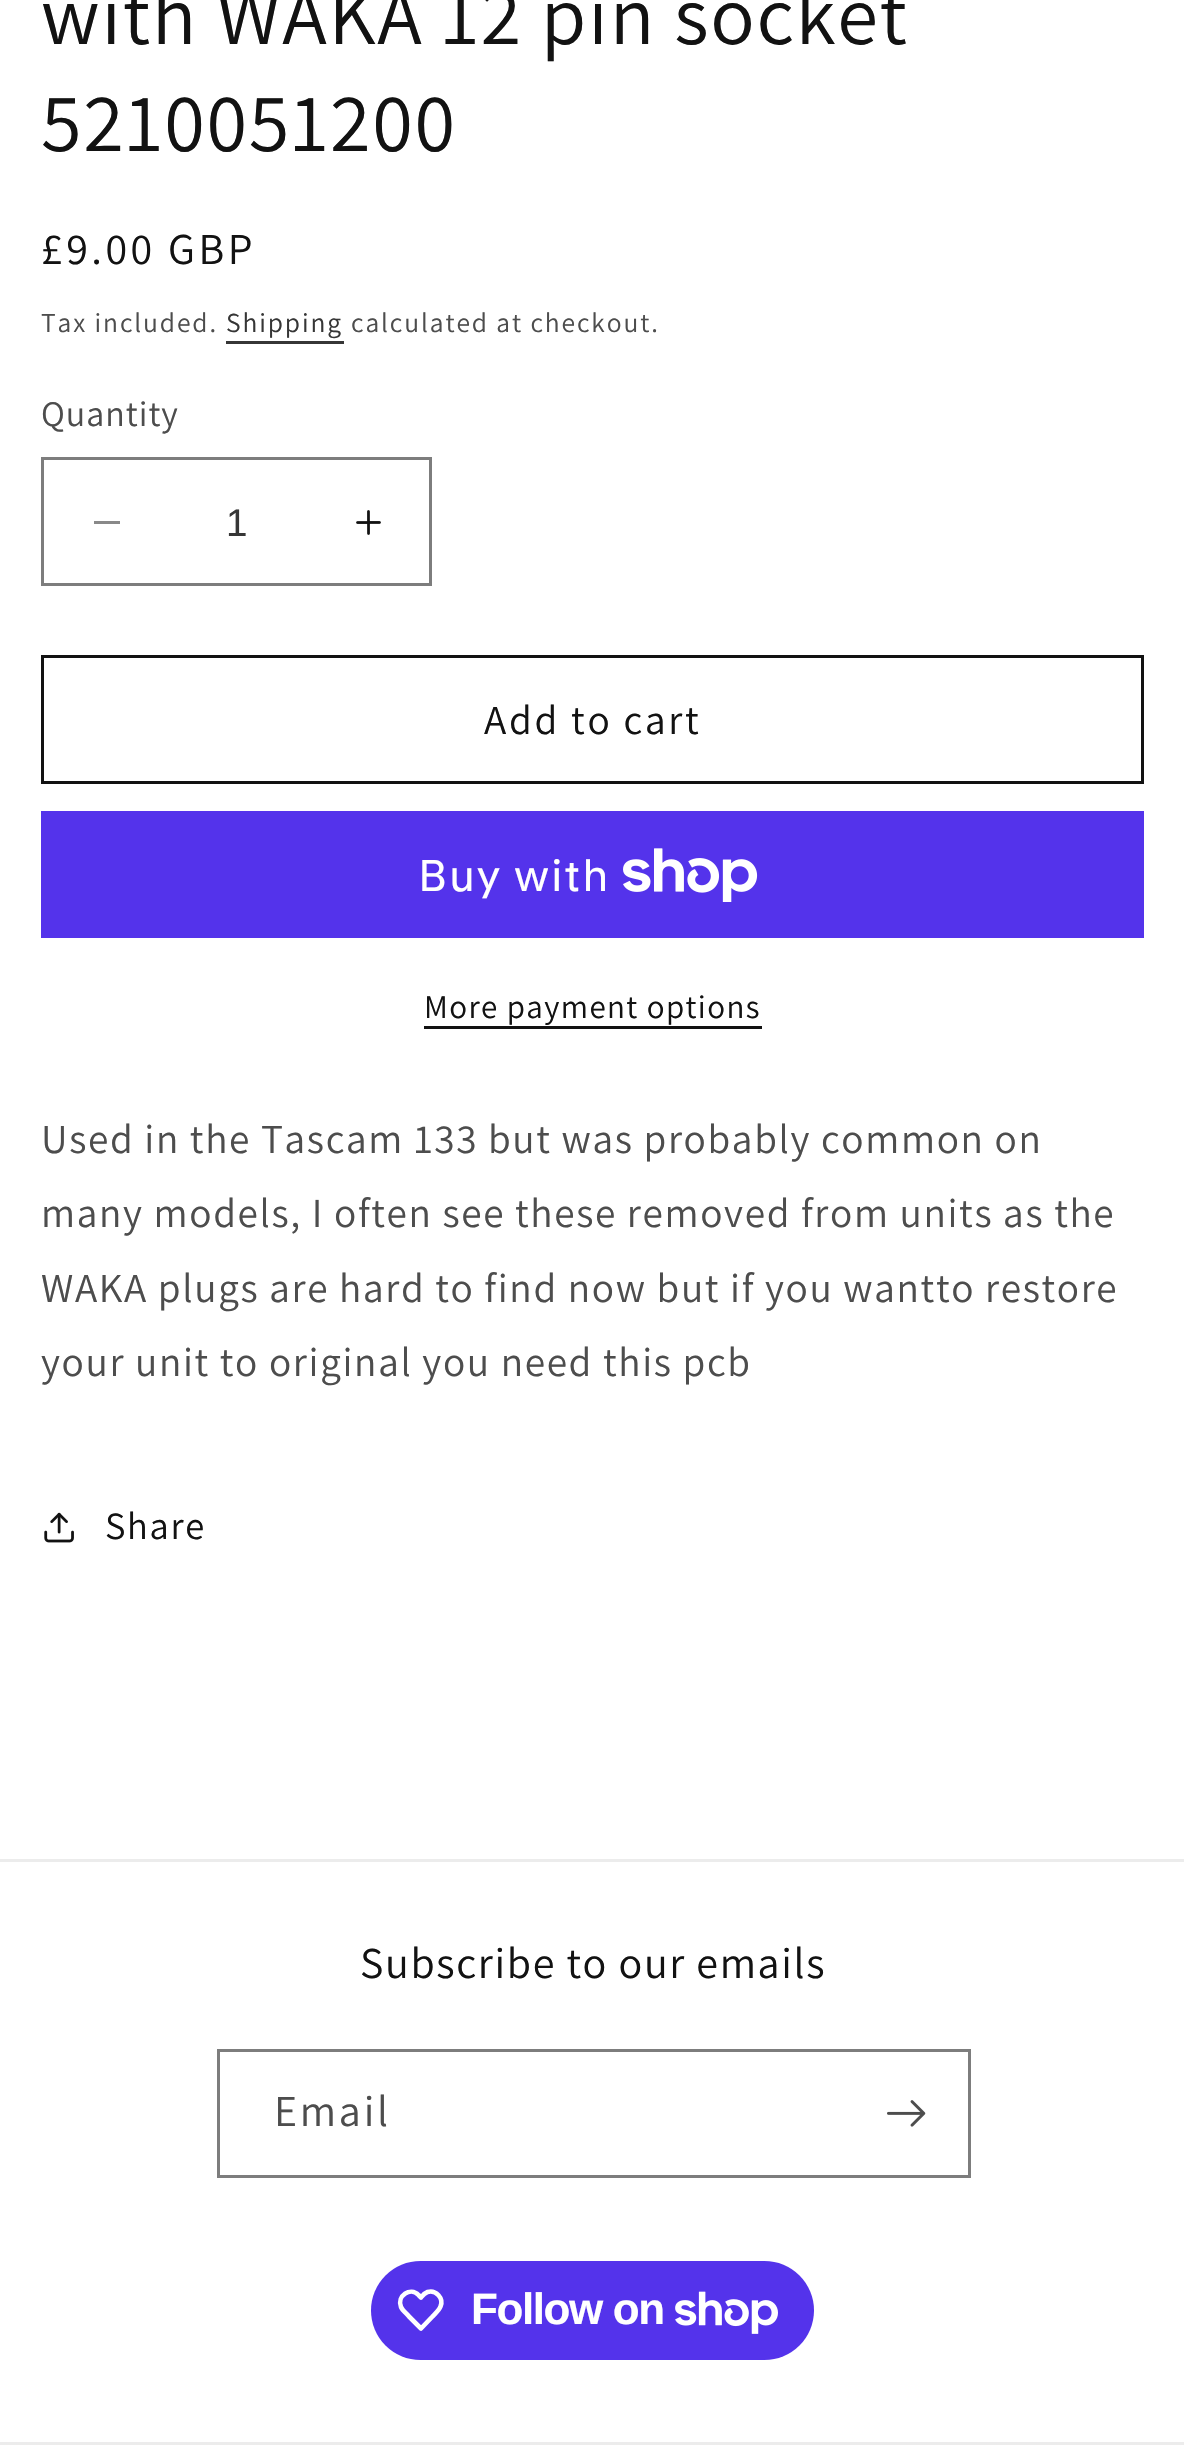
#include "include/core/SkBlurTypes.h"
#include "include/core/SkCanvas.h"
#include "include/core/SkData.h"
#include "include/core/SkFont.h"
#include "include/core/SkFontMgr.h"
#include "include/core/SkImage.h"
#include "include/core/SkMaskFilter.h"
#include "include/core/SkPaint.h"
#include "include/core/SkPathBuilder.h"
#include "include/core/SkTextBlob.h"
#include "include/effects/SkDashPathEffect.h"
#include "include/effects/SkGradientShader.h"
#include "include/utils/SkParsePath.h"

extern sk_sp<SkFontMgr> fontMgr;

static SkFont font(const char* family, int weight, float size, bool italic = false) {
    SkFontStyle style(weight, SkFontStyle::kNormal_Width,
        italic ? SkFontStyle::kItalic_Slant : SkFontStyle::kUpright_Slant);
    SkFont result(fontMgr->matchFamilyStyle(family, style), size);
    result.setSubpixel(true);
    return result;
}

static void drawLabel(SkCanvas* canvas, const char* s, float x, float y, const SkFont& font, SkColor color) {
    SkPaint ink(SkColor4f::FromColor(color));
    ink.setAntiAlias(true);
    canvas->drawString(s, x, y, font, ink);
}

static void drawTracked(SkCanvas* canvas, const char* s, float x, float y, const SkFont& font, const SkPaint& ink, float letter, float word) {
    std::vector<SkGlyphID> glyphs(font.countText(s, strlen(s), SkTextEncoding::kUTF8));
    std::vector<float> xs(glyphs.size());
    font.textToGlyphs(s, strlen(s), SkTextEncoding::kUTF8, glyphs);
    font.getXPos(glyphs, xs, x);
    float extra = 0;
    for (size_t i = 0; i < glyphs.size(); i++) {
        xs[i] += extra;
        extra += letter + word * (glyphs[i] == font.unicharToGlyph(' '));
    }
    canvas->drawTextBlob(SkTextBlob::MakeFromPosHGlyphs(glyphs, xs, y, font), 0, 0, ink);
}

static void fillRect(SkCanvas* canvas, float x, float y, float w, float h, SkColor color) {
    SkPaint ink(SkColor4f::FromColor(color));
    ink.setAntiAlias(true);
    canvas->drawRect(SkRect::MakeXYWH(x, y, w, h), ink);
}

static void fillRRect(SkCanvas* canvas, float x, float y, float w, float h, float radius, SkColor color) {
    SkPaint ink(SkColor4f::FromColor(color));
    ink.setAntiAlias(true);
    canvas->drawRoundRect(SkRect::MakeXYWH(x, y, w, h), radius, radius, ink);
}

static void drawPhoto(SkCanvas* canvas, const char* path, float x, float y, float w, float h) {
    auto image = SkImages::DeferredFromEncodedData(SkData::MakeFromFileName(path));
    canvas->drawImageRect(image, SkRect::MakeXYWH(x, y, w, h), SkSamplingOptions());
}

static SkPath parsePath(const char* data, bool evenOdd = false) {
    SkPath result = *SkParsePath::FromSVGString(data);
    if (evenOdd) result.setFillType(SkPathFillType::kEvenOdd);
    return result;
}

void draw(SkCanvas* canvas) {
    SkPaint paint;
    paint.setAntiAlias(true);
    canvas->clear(0xFFFFFFFF);
    SkFont font1 = font("Assistant", 400, 82.5f);
    paint.setColor(0xFF121212);
    drawTracked(canvas, "with WAKA 12 pin socket", 41, 44, font1, paint, 1.65f, 0);
    drawTracked(canvas, "5210051200", 41, 151, font1, paint, 1.65f, 0);
    SkFont font2 = font("Assistant", 400, 44);
    drawTracked(canvas, "£9.00 GBP", 41, 264, font2, paint, 3.5f, 0);
    SkFont font3 = font("Assistant", 400, 27.5f);
    paint.setColor(0xFF4D4D4D);
    drawTracked(canvas, "Tax included.", 41, 332, font3, paint, 1.9f, 0);
    paint.setColor(0xFF363636);
    drawTracked(canvas, "Shipping", 226, 332, font3, paint, 1.9f, 0);
    fillRect(canvas, 226, 341, 118, 3, 0xFF363636);
    paint.setColor(0xFF4D4D4D);
    drawTracked(canvas, "calculated at checkout.", 351, 332, font3, paint, 1.9f, 0);
    SkFont font4 = font("Assistant", 400, 36);
    drawTracked(canvas, "Quantity", 41, 426, font4, paint, 1, 0);
    fillRect(canvas, 94, 521, 26, 3, 0xFF898989);
    drawPhoto(canvas, "assets/img1.png", 356, 510, 25, 25);
    paint.setStroke(true);
    paint.setStrokeWidth(3);
    paint.setColor(0xFF7D7D7D);
    canvas->drawRect(SkRect::MakeXYWH(42.5f, 458.5f, 388, 126), paint);
    SkFont font5 = font("Liberation Sans", 400, 38.5f);
    drawLabel(canvas, "1", 226, 536, font5, 0xFF363636);
    paint.setColor(0xFF121212);
    canvas->drawRect(SkRect::MakeXYWH(42.5f, 656.5f, 1100, 126), paint);
    SkFont font6 = font("Assistant", 400, 41.25f);
    paint.setStroke(false);
    drawTracked(canvas, "Add to cart", 484, 734, font6, paint, 2.75f, 0);
    fillRect(canvas, 41, 811, 1103, 127, 0xFF5433EB);
    SkFont font7 = font("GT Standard", 400, 44);
    paint.setColor(0xFFFFFFFF);
    drawTracked(canvas, "Buy with", 418, 891, font7, paint, 1.65f, 0);
    drawPhoto(canvas, "assets/img2.png", 623, 848, 135, 54);
    SkFont font8 = font("Assistant", 400, 33);
    paint.setColor(0xFF121212);
    drawTracked(canvas, "More payment options", 424, 1018, font8, paint, 1.4f, 0);
    fillRect(canvas, 424, 1026, 338, 3, 0xFF121212);
    paint.setColor(0xFF4D4D4D);
    drawTracked(canvas, "Used in the Tascam 133 but was probably common on", 41, 1153, font6, paint, 1.65f, 0);
    drawTracked(canvas, "many models, I often see these removed from units as the", 41, 1227, font6, paint, 1.65f, 0);
    drawTracked(canvas, "WAKA plugs are hard to find now but if you wantto restore", 41, 1302, font6, paint, 1.65f, 0);
    drawTracked(canvas, "your unit to original you need this pcb", 41, 1376, font6, paint, 1.65f, 0);
    drawPhoto(canvas, "assets/img3.png", 44, 1512, 30, 31);
    SkFont font9 = font("Assistant", 400, 38.5f);
    paint.setColor(0xFF121212);
    drawTracked(canvas, "Share", 105, 1539, font9, paint, 1.65f, 0);
    fillRect(canvas, 0, 1859, 1184, 3, 0xFFECECEC);
    drawTracked(canvas, "Subscribe to our emails", 360, 1978, font2, paint, 1.65f, 0);
    paint.setStroke(true);
    paint.setColor(0xFF7D7D7D);
    canvas->drawRect(SkRect::MakeXYWH(218.5f, 2050.5f, 751, 126), paint);
    paint.setStroke(false);
    paint.setColor(0xFF4D4D4D);
    drawTracked(canvas, "Email", 274, 2126, font2, paint, 2.75f, 0);
    drawPhoto(canvas, "assets/img4.png", 887, 2100, 39, 27);
    fillRRect(canvas, 371, 2261, 443, 99, 49.5f, 0xFF5433EB);
    paint.setStroke(true);
    paint.setStrokeWidth(4.6f);
    paint.setStrokeJoin(SkPaint::kRound_Join);
    paint.setColor(0xFFFFFFFF);
    canvas->drawPath(parsePath("M418.5 2295L421 2297.5C423 2295 424.5 2293 427.5 2292C436 2289.5 444 2298.5 440.5 2306.5C439 2310.5 435 2313.5 432.5 2316.5L421 2328.5L409 2316.5C406.5 2313.5 402.5 2310.5 401 2307C396.5 2296 410.5 2286.5 418.5 2295Z"), paint);
    SkFont font10 = font("Liberation Sans", 700, 44);
    paint.setStroke(false);
    drawTracked(canvas, "Follow on", 471, 2324, font10, paint, -1.4f, 0);
    drawPhoto(canvas, "assets/img5.png", 675, 2291, 103, 43);
    fillRect(canvas, 0, 2442, 1184, 3, 0xFFECECEC);
}
